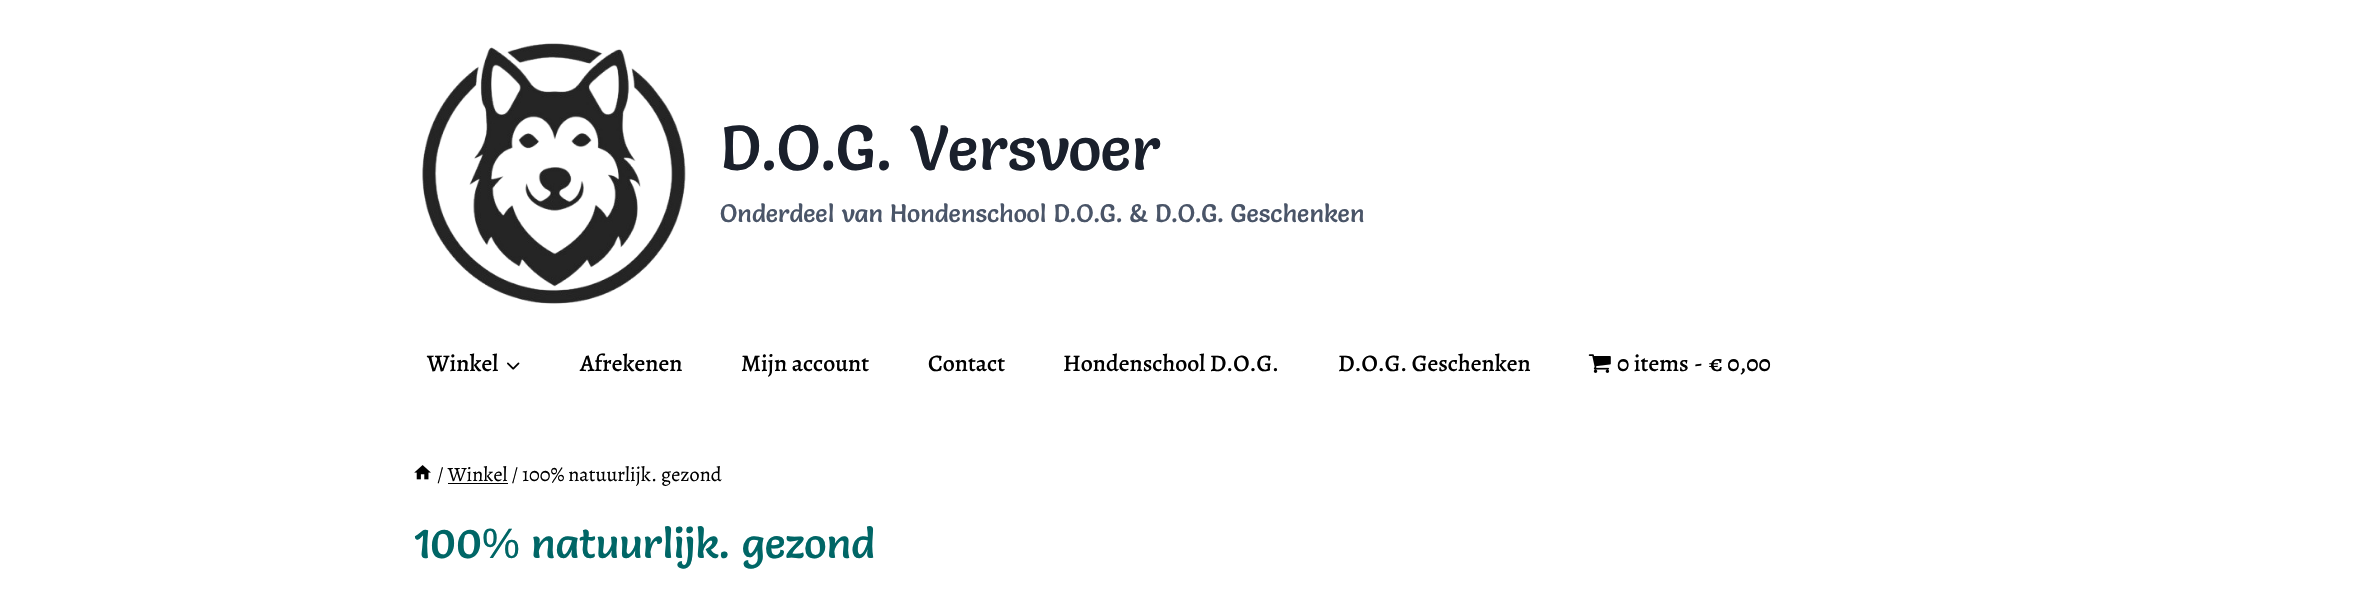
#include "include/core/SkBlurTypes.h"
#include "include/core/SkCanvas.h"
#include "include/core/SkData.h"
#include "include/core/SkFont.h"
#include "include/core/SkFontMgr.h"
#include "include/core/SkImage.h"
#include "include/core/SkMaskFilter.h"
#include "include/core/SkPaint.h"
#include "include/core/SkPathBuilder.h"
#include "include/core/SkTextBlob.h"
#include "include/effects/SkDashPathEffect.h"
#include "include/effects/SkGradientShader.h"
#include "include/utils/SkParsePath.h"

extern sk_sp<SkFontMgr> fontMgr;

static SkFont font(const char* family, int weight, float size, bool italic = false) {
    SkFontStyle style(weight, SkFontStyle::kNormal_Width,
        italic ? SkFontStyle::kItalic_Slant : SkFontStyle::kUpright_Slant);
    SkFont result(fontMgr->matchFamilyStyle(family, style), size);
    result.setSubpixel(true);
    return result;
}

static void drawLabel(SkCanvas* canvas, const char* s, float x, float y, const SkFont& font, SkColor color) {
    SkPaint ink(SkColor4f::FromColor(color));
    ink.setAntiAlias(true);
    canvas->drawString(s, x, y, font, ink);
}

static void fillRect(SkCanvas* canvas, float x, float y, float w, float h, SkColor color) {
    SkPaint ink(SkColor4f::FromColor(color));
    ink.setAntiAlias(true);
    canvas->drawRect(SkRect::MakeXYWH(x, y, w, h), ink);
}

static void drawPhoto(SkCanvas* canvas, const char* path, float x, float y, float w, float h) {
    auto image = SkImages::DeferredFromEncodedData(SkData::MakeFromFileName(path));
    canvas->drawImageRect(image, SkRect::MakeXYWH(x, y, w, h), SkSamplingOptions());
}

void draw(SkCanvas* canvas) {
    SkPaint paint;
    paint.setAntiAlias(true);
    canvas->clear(0xFFFFFFFF);
    drawPhoto(canvas, "assets/img1.png", 422, 43, 264, 261);
    SkFont font1 = font("Salsa", 400, 62.5f);
    drawLabel(canvas, "D.O.G. Versvoer", 720, 170, font1, 0xFF1A202C);
    SkFont font2 = font("Salsa", 400, 25);
    drawLabel(canvas, "Onderdeel van Hondenschool D.O.G. & D.O.G. Geschenken", 720, 222, font2, 0xFF4A5568);
    SkFont font3 = font("Alegreya", 500, 23.75f);
    drawLabel(canvas, "Winkel", 427, 371, font3, 0xFF000000);
    drawPhoto(canvas, "assets/img2.png", 507, 362, 13, 8);
    drawLabel(canvas, "Afrekenen", 580, 371, font3, 0xFF000000);
    drawLabel(canvas, "Mijn account", 741, 371, font3, 0xFF000000);
    drawLabel(canvas, "Contact", 928, 371, font3, 0xFF000000);
    drawLabel(canvas, "Hondenschool D.O.G.", 1063, 371, font3, 0xFF000000);
    drawLabel(canvas, "D.O.G. Geschenken", 1338, 371, font3, 0xFF000000);
    drawPhoto(canvas, "assets/img3.png", 1588, 354, 23, 19);
    drawLabel(canvas, "0 items", 1617, 371, font3, 0xFF000000);
    drawLabel(canvas, "-", 1694, 371, font3, 0xFF000000);
    drawLabel(canvas, "€ 0,00", 1709, 371, font3, 0xFF000000);
    drawPhoto(canvas, "assets/img4.png", 414, 465, 17, 15);
    SkFont font4 = font("Alegreya", 400, 20.25f);
    drawLabel(canvas, "/ Winkel / 100% natuurlijk. gezond", 437, 481, font4, 0xFF000000);
    fillRect(canvas, 448, 483, 60, 1, 0xFF000000);
    SkFont font5 = font("Salsa", 400, 42.5f);
    drawLabel(canvas, "100", 413, 558, font5, 0xFF006666);
    SkFont font6 = font("Liberation Sans", 400, 42.5f);
    drawLabel(canvas, "%", 482, 558, font6, 0xFF006666);
    drawLabel(canvas, "natuurlijk. gezond", 531, 558, font5, 0xFF006666);
}
